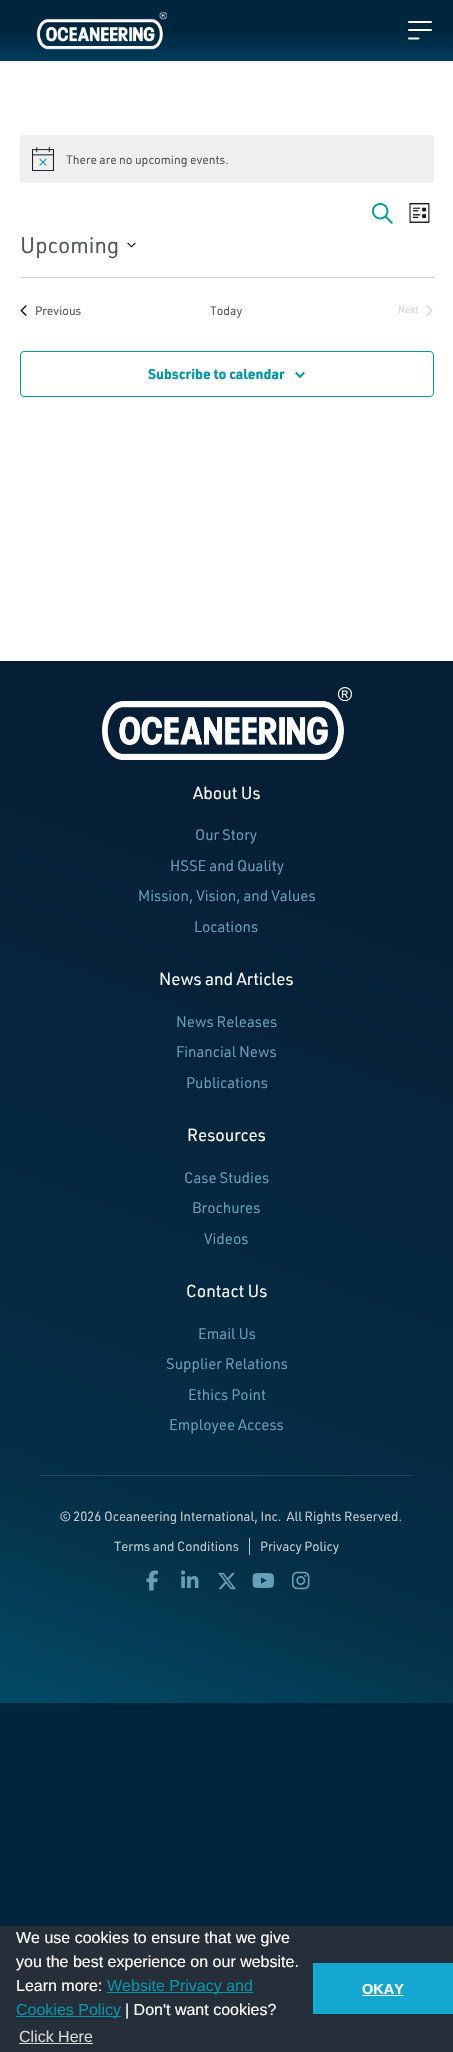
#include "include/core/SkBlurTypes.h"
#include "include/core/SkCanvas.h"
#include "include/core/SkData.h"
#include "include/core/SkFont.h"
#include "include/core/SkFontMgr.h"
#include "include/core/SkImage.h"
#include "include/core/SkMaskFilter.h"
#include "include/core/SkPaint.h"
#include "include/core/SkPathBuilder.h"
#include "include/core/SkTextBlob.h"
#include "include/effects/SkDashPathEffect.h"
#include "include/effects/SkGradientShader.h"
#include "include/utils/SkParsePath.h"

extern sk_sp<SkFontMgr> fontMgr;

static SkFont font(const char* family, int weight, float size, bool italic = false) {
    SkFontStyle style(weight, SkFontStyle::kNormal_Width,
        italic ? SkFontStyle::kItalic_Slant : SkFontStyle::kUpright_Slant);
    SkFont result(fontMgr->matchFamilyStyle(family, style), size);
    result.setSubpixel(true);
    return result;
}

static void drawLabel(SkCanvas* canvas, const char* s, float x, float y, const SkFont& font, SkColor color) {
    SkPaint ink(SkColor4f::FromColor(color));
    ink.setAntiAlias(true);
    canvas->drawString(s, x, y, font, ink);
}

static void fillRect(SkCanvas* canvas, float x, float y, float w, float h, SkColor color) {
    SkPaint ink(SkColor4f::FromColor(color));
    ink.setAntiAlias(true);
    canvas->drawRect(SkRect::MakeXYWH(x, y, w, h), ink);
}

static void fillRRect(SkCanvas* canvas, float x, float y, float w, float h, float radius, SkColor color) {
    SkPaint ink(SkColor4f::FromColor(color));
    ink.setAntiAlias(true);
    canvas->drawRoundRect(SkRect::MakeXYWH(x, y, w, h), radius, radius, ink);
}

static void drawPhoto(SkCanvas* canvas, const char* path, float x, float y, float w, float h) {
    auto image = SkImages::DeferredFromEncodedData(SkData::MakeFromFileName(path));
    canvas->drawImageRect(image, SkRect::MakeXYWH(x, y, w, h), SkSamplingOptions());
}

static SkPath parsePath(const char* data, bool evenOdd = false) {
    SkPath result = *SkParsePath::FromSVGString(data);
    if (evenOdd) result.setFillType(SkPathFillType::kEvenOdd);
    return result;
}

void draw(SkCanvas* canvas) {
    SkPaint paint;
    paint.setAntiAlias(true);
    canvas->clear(0xFF00263E);
    {
        const SkColor colors[] = {0xFF00263E, 0xFF003B5C, 0xFF017093};
        const float stops[] = {0.5f, 1, 1};
        const SkPoint ends[] = {{227, 0}, {227, 61}};
        paint.setShader(SkGradientShader::MakeLinear(ends, colors, stops, 3, SkTileMode::kClamp));
        paint.setAlpha(255);
    }
    canvas->drawRect(SkRect::MakeXYWH(0, 33, 453, 28), paint);
    drawPhoto(canvas, "assets/img1.png", 36, 11, 131, 39);
    paint.setStroke(true);
    paint.setStrokeWidth(2);
    paint.setStrokeCap(SkPaint::kRound_Cap);
    paint.setStrokeJoin(SkPaint::kRound_Join);
    paint.setShader(nullptr);
    paint.setColor(0xFFFFFFFF);
    canvas->drawPath(parsePath("M409 22H431M409 30H431M409 38.5H418.5"), paint);
    fillRect(canvas, 0, 61, 453, 600, 0xFFFFFFFF);
    fillRRect(canvas, 20, 135, 414, 48, 4, 0xFFEFEFF0);
    drawPhoto(canvas, "assets/img2.png", 32, 147, 22, 24);
    SkFont font1 = font("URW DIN", 400, 12);
    drawLabel(canvas, "There are no upcoming events.", 66, 164, font1, 0xFF4F565B);
    drawPhoto(canvas, "assets/img3.png", 372, 203, 21, 21);
    drawPhoto(canvas, "assets/img4.png", 409, 203, 21, 20);
    SkFont font2 = font("URW DIN", 400, 22);
    drawLabel(canvas, "Upcoming", 20, 253, font2, 0xFF4F565B);
    drawPhoto(canvas, "assets/img5.png", 127, 242, 9, 6);
    fillRect(canvas, 20, 277, 414, 1, 0xFFD5D5D5);
    drawPhoto(canvas, "assets/img6.png", 20, 305, 7, 11);
    drawLabel(canvas, "Previous", 35, 315, font1, 0xFF4F565B);
    drawLabel(canvas, "Today", 210, 315, font1, 0xFF4F565B);
    SkFont font3 = font("URW DIN", 400, 10);
    drawLabel(canvas, "Next", 398, 313, font3, 0xFFD5D5D5);
    drawPhoto(canvas, "assets/img7.png", 426, 305, 7, 11);
    paint.setStrokeWidth(1);
    paint.setStrokeCap(SkPaint::kButt_Cap);
    paint.setStrokeJoin(SkPaint::kMiter_Join);
    paint.setColor(0xFF0097A9);
    canvas->drawRoundRect(SkRect::MakeXYWH(20.5f, 351.5f, 413, 45), 3.5f, 3.5f, paint);
    SkFont font4 = font("URW DIN", 700, 14);
    drawLabel(canvas, "Subscribe to calendar", 148, 379, font4, 0xFF0097A9);
    drawPhoto(canvas, "assets/img8.png", 295, 372, 10, 6);
    paint.setStroke(false);
    {
        const SkColor colors[] = {0xFF061F36, 0xFF052F47, 0xFF025975};
        const float stops[] = {0.18f, 0.73f, 1};
        const SkPoint ends[] = {{420, 649}, {-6.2f, 1821}};
        paint.setShader(SkGradientShader::MakeLinear(ends, colors, stops, 3, SkTileMode::kClamp));
        paint.setAlpha(255);
    }
    canvas->drawRect(SkRect::MakeXYWH(0, 661, 453, 1042), paint);
    {
        const SkColor colors[] = {0xFF1F3951, 0xFF1E465E, 0xFF1C6883};
        const float stops[] = {0.18f, 0.73f, 1};
        const SkPoint ends[] = {{420, 649}, {-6.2f, 1821}};
        paint.setShader(SkGradientShader::MakeLinear(ends, colors, stops, 3, SkTileMode::kClamp));
        paint.setAlpha(255);
    }
    canvas->drawRect(SkRect::MakeXYWH(40, 1475, 373, 1), paint);
    drawPhoto(canvas, "assets/img9.png", 102, 687, 250, 73);
    SkFont font5 = font("URW DIN", 400, 17);
    drawLabel(canvas, "About Us", 193, 799, font5, 0xFFFFFFFF);
    SkFont font6 = font("URW DIN", 400, 15);
    drawLabel(canvas, "Our Story", 195, 840, font6, 0xFF679FB7);
    drawLabel(canvas, "HSSE and Quality", 170, 871, font6, 0xFF679FB7);
    drawLabel(canvas, "Mission, Vision, and Values", 138, 901, font6, 0xFF679FB7);
    drawLabel(canvas, "Locations", 194, 932, font6, 0xFF679FB7);
    drawLabel(canvas, "News and Articles", 159, 985, font5, 0xFFFFFFFF);
    drawLabel(canvas, "News Releases", 176, 1027, font6, 0xFF679FB7);
    drawLabel(canvas, "Financial News", 176, 1057, font6, 0xFF679FB7);
    drawLabel(canvas, "Publications", 186, 1088, font6, 0xFF679FB7);
    drawLabel(canvas, "Resources", 187, 1141, font5, 0xFFFFFFFF);
    drawLabel(canvas, "Case Studies", 184, 1183, font6, 0xFF679FB7);
    drawLabel(canvas, "Brochures", 192, 1213, font6, 0xFF679FB7);
    drawLabel(canvas, "Videos", 204, 1244, font6, 0xFF679FB7);
    drawLabel(canvas, "Contact Us", 186, 1297, font5, 0xFFFFFFFF);
    drawLabel(canvas, "Email Us", 198, 1339, font6, 0xFF679FB7);
    drawLabel(canvas, "Supplier Relations", 166, 1369, font6, 0xFF679FB7);
    drawLabel(canvas, "Ethics Point", 188, 1400, font6, 0xFF679FB7);
    drawLabel(canvas, "Employee Access", 169, 1430, font6, 0xFF679FB7);
    SkFont font7 = font("URW DIN", 400, 13);
    drawLabel(canvas, "© 2026 Oceaneering International, Inc.  All Rights Reserved.", 60, 1521, font7, 0xFFC1CBD1);
    drawLabel(canvas, "Terms and Conditions", 114, 1551, font7, 0xFFC1CBD1);
    fillRect(canvas, 249, 1538, 1, 17, 0xFFC1CBD1);
    drawLabel(canvas, "Privacy Policy", 260, 1551, font7, 0xFFC1CBD1);
    drawPhoto(canvas, "assets/img10.png", 146, 1570, 12, 21);
    drawPhoto(canvas, "assets/img11.png", 181, 1570, 18, 18);
    drawPhoto(canvas, "assets/img12.png", 218, 1572, 18, 18);
    drawPhoto(canvas, "assets/img13.png", 252, 1573, 22, 15);
    drawPhoto(canvas, "assets/img14.png", 292, 1571, 18, 19);
    fillRect(canvas, 0, 1926, 453, 126, 0xFF252E39);
    SkFont font8 = font("Liberation Sans", 400, 16);
    drawLabel(canvas, "We use cookies to ensure that we give", 16, 1943, font8, 0xFFFFFFFF);
    drawLabel(canvas, "you the best experience on our website.", 16, 1967, font8, 0xFFFFFFFF);
    drawLabel(canvas, "Learn more:", 16, 1991, font8, 0xFFFFFFFF);
    fillRect(canvas, 107, 1992, 146, 1, 0xFF0097A9);
    drawLabel(canvas, "Website Privacy and", 107, 1991, font8, 0xFF0097A9);
    fillRect(canvas, 16, 2016, 105, 1, 0xFF0097A9);
    drawLabel(canvas, "Cookies Policy", 16, 2015, font8, 0xFF0097A9);
    drawLabel(canvas, "| Don't want cookies?", 125, 2015, font8, 0xFFFFFFFF);
    drawLabel(canvas, "Click Here", 19, 2042, font8, 0xFFD5D5D5);
    fillRect(canvas, 19, 2043, 74, 1, 0xFFD3D5D7);
    fillRect(canvas, 313, 1963, 140, 51, 0xFF14A7D0);
    SkFont font9 = font("Liberation Sans", 700, 14.5f);
    drawLabel(canvas, "OKAY", 362, 1994, font9, 0xFFFFFFFF);
    fillRect(canvas, 362, 1995, 42, 1, 0xFFFFFFFF);
}
